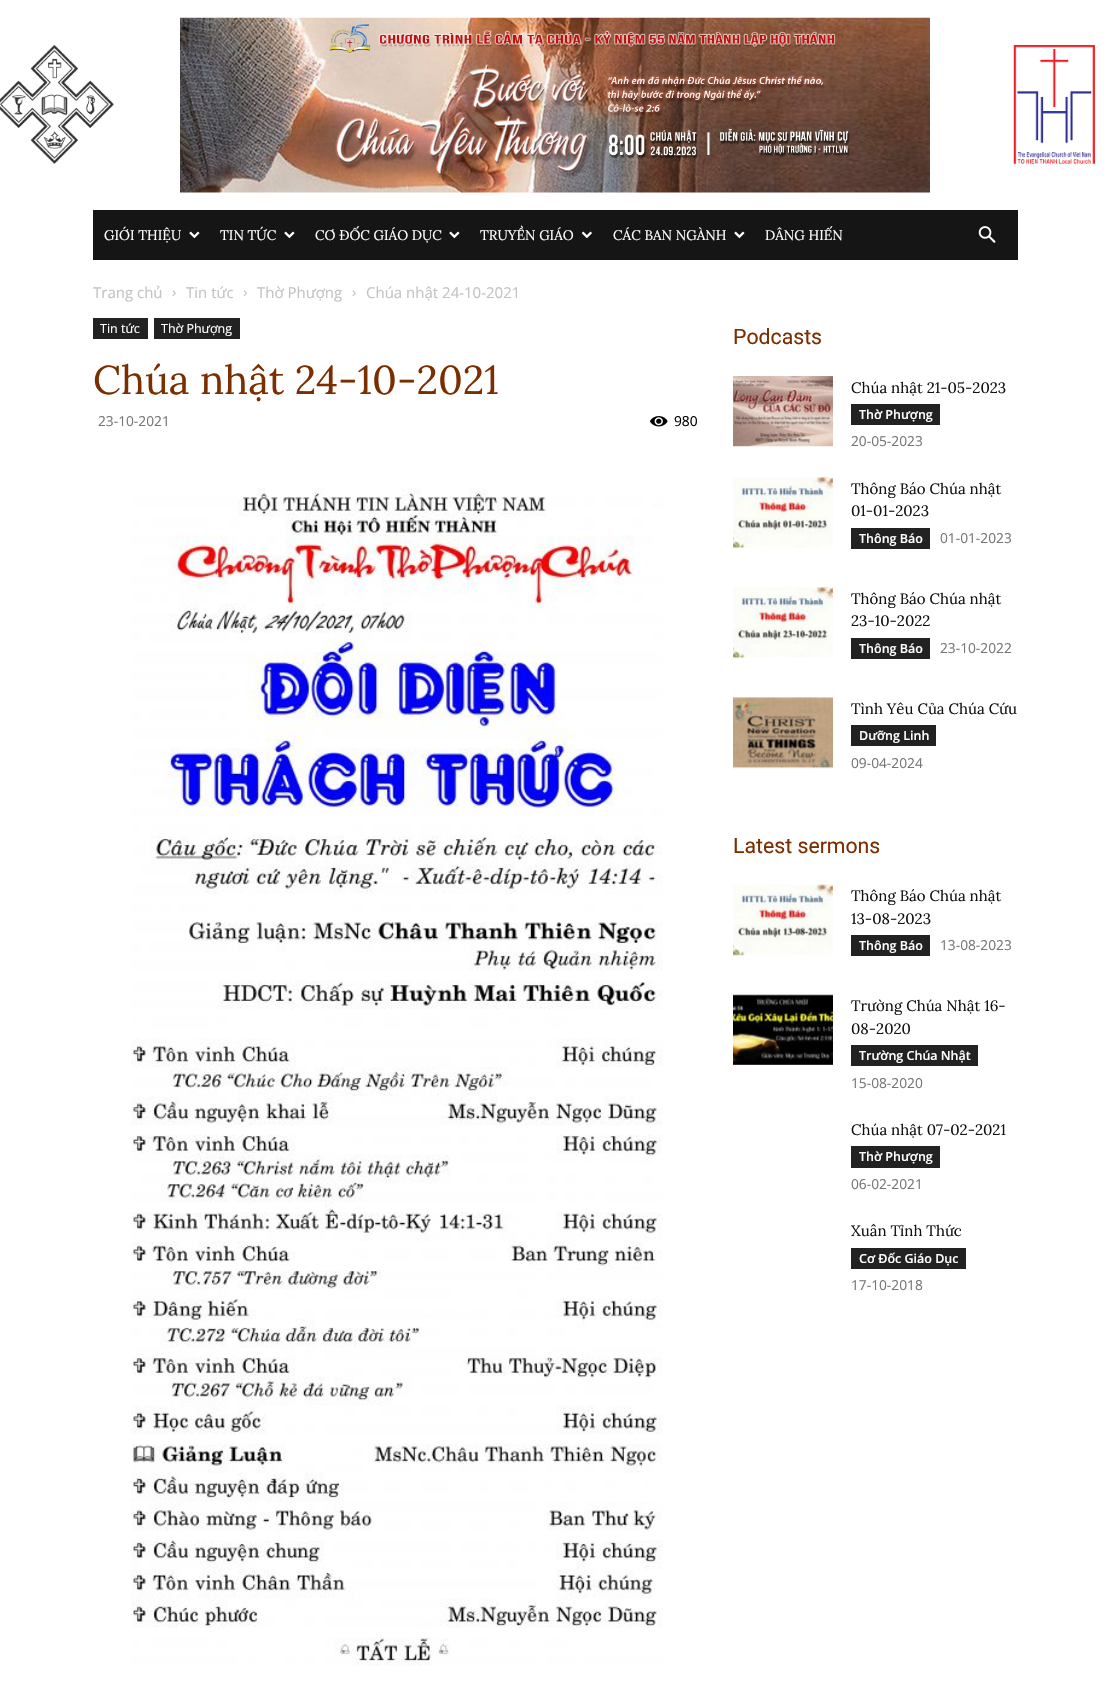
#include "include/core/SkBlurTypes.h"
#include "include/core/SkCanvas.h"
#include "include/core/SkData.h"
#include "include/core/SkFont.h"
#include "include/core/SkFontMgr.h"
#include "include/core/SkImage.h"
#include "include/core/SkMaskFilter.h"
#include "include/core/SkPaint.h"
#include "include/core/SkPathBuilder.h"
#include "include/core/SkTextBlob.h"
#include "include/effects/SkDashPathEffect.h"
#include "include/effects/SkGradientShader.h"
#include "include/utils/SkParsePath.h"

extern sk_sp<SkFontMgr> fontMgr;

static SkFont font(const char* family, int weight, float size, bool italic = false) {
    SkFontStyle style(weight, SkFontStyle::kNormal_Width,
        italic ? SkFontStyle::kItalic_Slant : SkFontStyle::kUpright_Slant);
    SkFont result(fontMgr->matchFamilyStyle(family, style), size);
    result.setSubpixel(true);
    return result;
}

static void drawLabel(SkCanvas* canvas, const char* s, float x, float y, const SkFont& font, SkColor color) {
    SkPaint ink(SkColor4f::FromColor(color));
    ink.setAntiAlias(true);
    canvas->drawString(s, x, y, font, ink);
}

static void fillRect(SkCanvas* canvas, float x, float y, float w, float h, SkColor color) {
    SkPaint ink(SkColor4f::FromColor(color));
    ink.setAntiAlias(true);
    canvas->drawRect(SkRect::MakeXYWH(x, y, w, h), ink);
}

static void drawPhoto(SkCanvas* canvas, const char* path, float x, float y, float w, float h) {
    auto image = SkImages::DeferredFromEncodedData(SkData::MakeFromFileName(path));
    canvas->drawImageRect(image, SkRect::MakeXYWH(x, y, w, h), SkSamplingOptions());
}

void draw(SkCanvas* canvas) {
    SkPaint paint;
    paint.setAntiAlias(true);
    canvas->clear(0xFFFFFFFF);
    drawPhoto(canvas, "assets/img1.png", 0, 45, 114, 119);
    drawPhoto(canvas, "assets/img2.png", 180, 17, 750, 176);
    drawPhoto(canvas, "assets/img3.png", 1013, 45, 82, 119);
    fillRect(canvas, 93, 210, 925, 50, 0xFF151515);
    SkFont font1 = font("Lora", 400, 13.75f);
    drawLabel(canvas, "GIỚI THIỆU", 104, 240, font1, 0xFFFFFFFF);
    drawPhoto(canvas, "assets/img4.png", 189, 231, 11, 8);
    drawLabel(canvas, "TIN TỨC", 220, 240, font1, 0xFFFFFFFF);
    drawPhoto(canvas, "assets/img4.png", 284, 231, 11, 8);
    drawLabel(canvas, "CƠ ĐỐC GIÁO DỤC", 315, 240, font1, 0xFFFFFFFF);
    drawPhoto(canvas, "assets/img4.png", 449, 231, 11, 8);
    drawLabel(canvas, "TRUYỀN GIÁO", 480, 240, font1, 0xFFFFFFFF);
    drawPhoto(canvas, "assets/img5.png", 581, 231, 11, 8);
    drawLabel(canvas, "CÁC BAN NGÀNH", 613, 240, font1, 0xFFFFFFFF);
    drawPhoto(canvas, "assets/img4.png", 734, 231, 11, 8);
    drawLabel(canvas, "DÂNG HIẾN", 765, 240, font1, 0xFFFFFFFF);
    drawPhoto(canvas, "assets/img6.png", 978, 226, 18, 17);
    SkFont font2 = font("Open Sans", 400, 15);
    drawLabel(canvas, "Trang chủ", 93, 298, font2, 0xFFC3C3C3);
    drawPhoto(canvas, "assets/img7.png", 172, 290, 4, 6);
    drawLabel(canvas, "Tin tức", 186, 298, font2, 0xFFC3C3C3);
    drawPhoto(canvas, "assets/img8.png", 243, 290, 4, 6);
    drawLabel(canvas, "Thờ Phượng", 257, 298, font2, 0xFFC3C3C3);
    drawPhoto(canvas, "assets/img7.png", 352, 290, 4, 6);
    drawLabel(canvas, "Chúa nhật 24-10-2021", 366, 298, font2, 0xFFC3C3C3);
    fillRect(canvas, 93, 318, 55, 21, 0xFF222222);
    SkFont font3 = font("Open Sans", 400, 12.5f);
    drawLabel(canvas, "Tin tức", 100, 333, font3, 0xFFFFFFFF);
    fillRect(canvas, 154, 318, 86, 21, 0xFF222222);
    drawLabel(canvas, "Thờ Phượng", 161, 333, font3, 0xFFFFFFFF);
    SkFont font4 = font("Lora", 400, 40);
    drawLabel(canvas, "Chúa nhật 24-10-2021", 93, 394, font4, 0xFF7B2E00);
    SkFont font5 = font("Open Sans", 400, 13.75f);
    drawLabel(canvas, "23-10-2021", 98, 426, font5, 0xFF767676);
    drawPhoto(canvas, "assets/img9.png", 650, 416, 18, 11);
    drawLabel(canvas, "980", 674, 426, font5, 0xFF000000);
    drawPhoto(canvas, "assets/img10.png", 131, 488, 532, 1178);
    SkFont font6 = font("Roboto", 400, 21.25f);
    drawLabel(canvas, "Podcasts", 733, 344, font6, 0xFF7B2E00);
    drawPhoto(canvas, "assets/img11.png", 733, 376, 100, 71);
    SkFont font7 = font("Lora", 400, 15);
    drawLabel(canvas, "Chúa nhật 21-05-2023", 851, 393, font7, 0xFF111111);
    fillRect(canvas, 851, 404, 89, 21, 0xFF222222);
    SkFont font8 = font("Open Sans", 600, 12.5f);
    drawLabel(canvas, "Thờ Phượng", 859, 419, font8, 0xFFFFFFFF);
    drawLabel(canvas, "20-05-2023", 851, 446, font5, 0xFF767676);
    drawPhoto(canvas, "assets/img12.png", 733, 477, 100, 72);
    drawLabel(canvas, "Thông Báo Chúa nhật", 851, 494, font7, 0xFF111111);
    drawLabel(canvas, "01-01-2023", 851, 516, font7, 0xFF111111);
    fillRect(canvas, 851, 528, 79, 21, 0xFF222222);
    drawLabel(canvas, "Thông Báo", 859, 543, font8, 0xFFFFFFFF);
    drawLabel(canvas, "01-01-2023", 940, 543, font5, 0xFF767676);
    drawPhoto(canvas, "assets/img13.png", 733, 587, 100, 72);
    drawLabel(canvas, "Thông Báo Chúa nhật", 851, 604, font7, 0xFF111111);
    drawLabel(canvas, "23-10-2022", 851, 626, font7, 0xFF111111);
    fillRect(canvas, 851, 638, 79, 21, 0xFF222222);
    drawLabel(canvas, "Thông Báo", 859, 653, font8, 0xFFFFFFFF);
    drawLabel(canvas, "23-10-2022", 940, 653, font5, 0xFF767676);
    drawPhoto(canvas, "assets/img14.png", 733, 697, 100, 72);
    drawLabel(canvas, "Tình Yêu Của Chúa Cứu", 851, 714, font7, 0xFF111111);
    fillRect(canvas, 851, 725, 85, 21, 0xFF222222);
    drawLabel(canvas, "Dưỡng Linh", 859, 740, font8, 0xFFFFFFFF);
    drawLabel(canvas, "09-04-2024", 851, 768, font5, 0xFF767676);
    drawLabel(canvas, "Latest sermons", 733, 853, font6, 0xFF7B2E00);
    drawPhoto(canvas, "assets/img15.png", 733, 884, 100, 72);
    drawLabel(canvas, "Thông Báo Chúa nhật", 851, 901, font7, 0xFF111111);
    drawLabel(canvas, "13-08-2023", 851, 924, font7, 0xFF111111);
    fillRect(canvas, 851, 935, 79, 21, 0xFF222222);
    drawLabel(canvas, "Thông Báo", 859, 950, font8, 0xFFFFFFFF);
    drawLabel(canvas, "13-08-2023", 940, 950, font5, 0xFF767676);
    drawPhoto(canvas, "assets/img16.png", 733, 994, 100, 71);
    drawLabel(canvas, "Trường Chúa Nhật 16-", 851, 1011, font7, 0xFF111111);
    drawLabel(canvas, "08-2020", 851, 1034, font7, 0xFF111111);
    fillRect(canvas, 851, 1045, 127, 21, 0xFF222222);
    drawLabel(canvas, "Trường Chúa Nhật", 859, 1060, font8, 0xFFFFFFFF);
    drawLabel(canvas, "15-08-2020", 851, 1088, font5, 0xFF767676);
    drawLabel(canvas, "Chúa nhật 07-02-2021", 851, 1135, font7, 0xFF111111);
    fillRect(canvas, 851, 1146, 89, 22, 0xFF222222);
    drawLabel(canvas, "Thờ Phượng", 859, 1161, font8, 0xFFFFFFFF);
    drawLabel(canvas, "06-02-2021", 851, 1189, font5, 0xFF767676);
    drawLabel(canvas, "Xuân Tỉnh Thức", 851, 1236, font7, 0xFF111111);
    fillRect(canvas, 851, 1248, 115, 21, 0xFF222222);
    drawLabel(canvas, "Cơ Đốc Giáo Dục", 859, 1263, font8, 0xFFFFFFFF);
    drawLabel(canvas, "17-10-2018", 851, 1290, font5, 0xFF767676);
}
